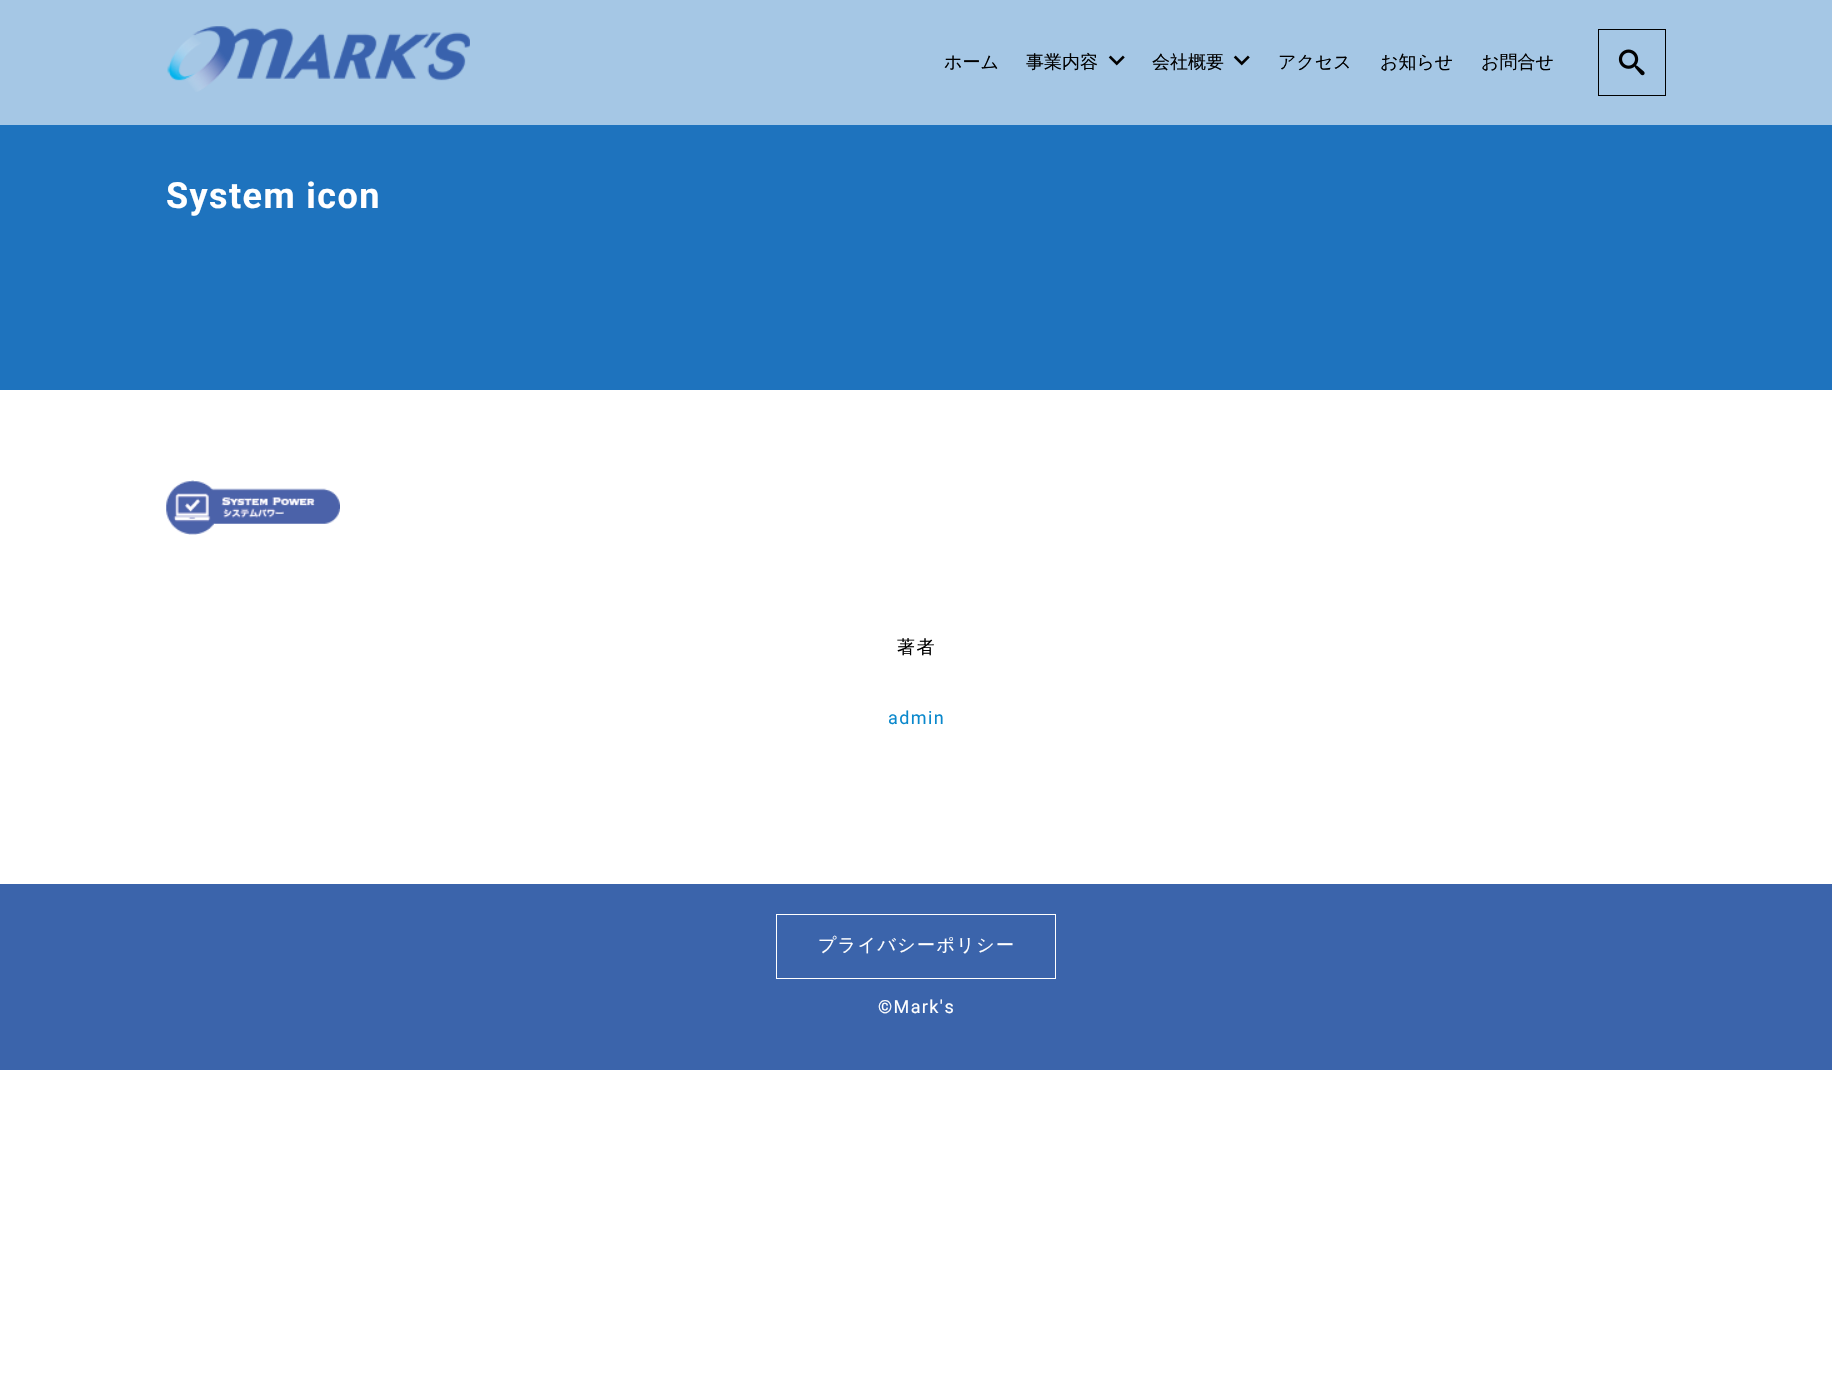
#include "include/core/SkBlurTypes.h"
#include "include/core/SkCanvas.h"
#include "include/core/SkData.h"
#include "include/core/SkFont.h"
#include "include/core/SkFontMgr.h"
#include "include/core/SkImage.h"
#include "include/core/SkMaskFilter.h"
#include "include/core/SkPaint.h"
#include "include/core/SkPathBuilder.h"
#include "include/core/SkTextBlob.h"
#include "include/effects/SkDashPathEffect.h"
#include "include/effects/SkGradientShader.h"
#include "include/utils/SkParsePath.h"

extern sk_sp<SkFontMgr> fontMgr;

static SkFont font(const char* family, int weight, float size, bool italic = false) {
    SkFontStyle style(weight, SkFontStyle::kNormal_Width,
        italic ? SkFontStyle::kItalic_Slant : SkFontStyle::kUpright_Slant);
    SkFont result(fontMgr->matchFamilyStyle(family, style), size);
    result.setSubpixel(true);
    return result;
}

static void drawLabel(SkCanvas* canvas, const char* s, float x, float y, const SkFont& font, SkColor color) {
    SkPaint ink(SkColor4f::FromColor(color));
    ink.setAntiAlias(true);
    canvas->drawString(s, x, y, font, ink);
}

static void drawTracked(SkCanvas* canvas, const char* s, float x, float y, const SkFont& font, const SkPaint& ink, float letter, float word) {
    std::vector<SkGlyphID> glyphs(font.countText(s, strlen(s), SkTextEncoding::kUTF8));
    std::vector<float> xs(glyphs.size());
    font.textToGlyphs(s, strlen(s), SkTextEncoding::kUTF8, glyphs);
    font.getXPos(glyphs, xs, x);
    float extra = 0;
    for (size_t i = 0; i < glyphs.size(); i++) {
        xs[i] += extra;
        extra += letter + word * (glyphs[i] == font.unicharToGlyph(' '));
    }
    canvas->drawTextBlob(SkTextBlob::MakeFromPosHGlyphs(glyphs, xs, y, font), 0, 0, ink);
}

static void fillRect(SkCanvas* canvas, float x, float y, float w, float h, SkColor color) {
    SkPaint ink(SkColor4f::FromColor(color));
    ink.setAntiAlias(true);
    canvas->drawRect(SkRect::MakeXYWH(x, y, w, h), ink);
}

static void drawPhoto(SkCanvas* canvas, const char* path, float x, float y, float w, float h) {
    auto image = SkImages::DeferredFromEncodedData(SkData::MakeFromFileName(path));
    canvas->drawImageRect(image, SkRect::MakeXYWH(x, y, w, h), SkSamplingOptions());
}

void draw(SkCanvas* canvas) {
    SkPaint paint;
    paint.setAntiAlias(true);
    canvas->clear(0xFFFFFFFF);
    fillRect(canvas, 0, 0, 1832, 125, 0xFFA5C7E5);
    drawPhoto(canvas, "assets/img1.png", 167, 26, 303, 66);
    SkFont font1 = font("WenQuanYi Zen Hei", 500, 18);
    drawLabel(canvas, "ホーム", 944, 68, font1, 0xFF000000);
    drawLabel(canvas, "事業内容", 1026, 68, font1, 0xFF000000);
    drawPhoto(canvas, "assets/img2.png", 1108, 55, 17, 11);
    drawLabel(canvas, "会社概要", 1152, 68, font1, 0xFF000000);
    drawPhoto(canvas, "assets/img2.png", 1233, 55, 17, 11);
    drawLabel(canvas, "アクセス", 1278, 68, font1, 0xFF000000);
    drawLabel(canvas, "お知らせ", 1380, 68, font1, 0xFF000000);
    drawLabel(canvas, "お問合せ", 1481, 68, font1, 0xFF000000);
    paint.setStroke(true);
    paint.setStrokeWidth(1);
    paint.setColor(0xFF000000);
    canvas->drawRect(SkRect::MakeXYWH(1598.5f, 29.5f, 67, 66), paint);
    drawPhoto(canvas, "assets/img3.png", 1618, 49, 27, 27);
    fillRect(canvas, 0, 125, 1832, 265, 0xFF1E73BE);
    SkFont font2 = font("Roboto", 700, 36);
    paint.setStroke(false);
    paint.setColor(0xFFFFFFFF);
    drawTracked(canvas, "System icon", 166, 208, font2, paint, 1.4f, 0);
    drawPhoto(canvas, "assets/img4.png", 166, 480, 174, 55);
    paint.setColor(0xFF000000);
    drawTracked(canvas, "著者", 897, 653, font1, paint, 1.4f, 0);
    SkFont font3 = font("Roboto", 400, 18);
    paint.setColor(0xFF0A88CC);
    drawTracked(canvas, "admin", 888, 724, font3, paint, 1.4f, 0);
    fillRect(canvas, 0, 884, 1832, 186, 0xFF3B64AB);
    paint.setStroke(true);
    paint.setColor(0xFFFFFFFF);
    canvas->drawRect(SkRect::MakeXYWH(776.5f, 914.5f, 279, 64), paint);
    paint.setStroke(false);
    drawTracked(canvas, "プライバシーポリシー", 818, 951, font1, paint, 1.4f, 0);
    drawTracked(canvas, "©Mark's", 878, 1013, font3, paint, 1.4f, 0);
}
